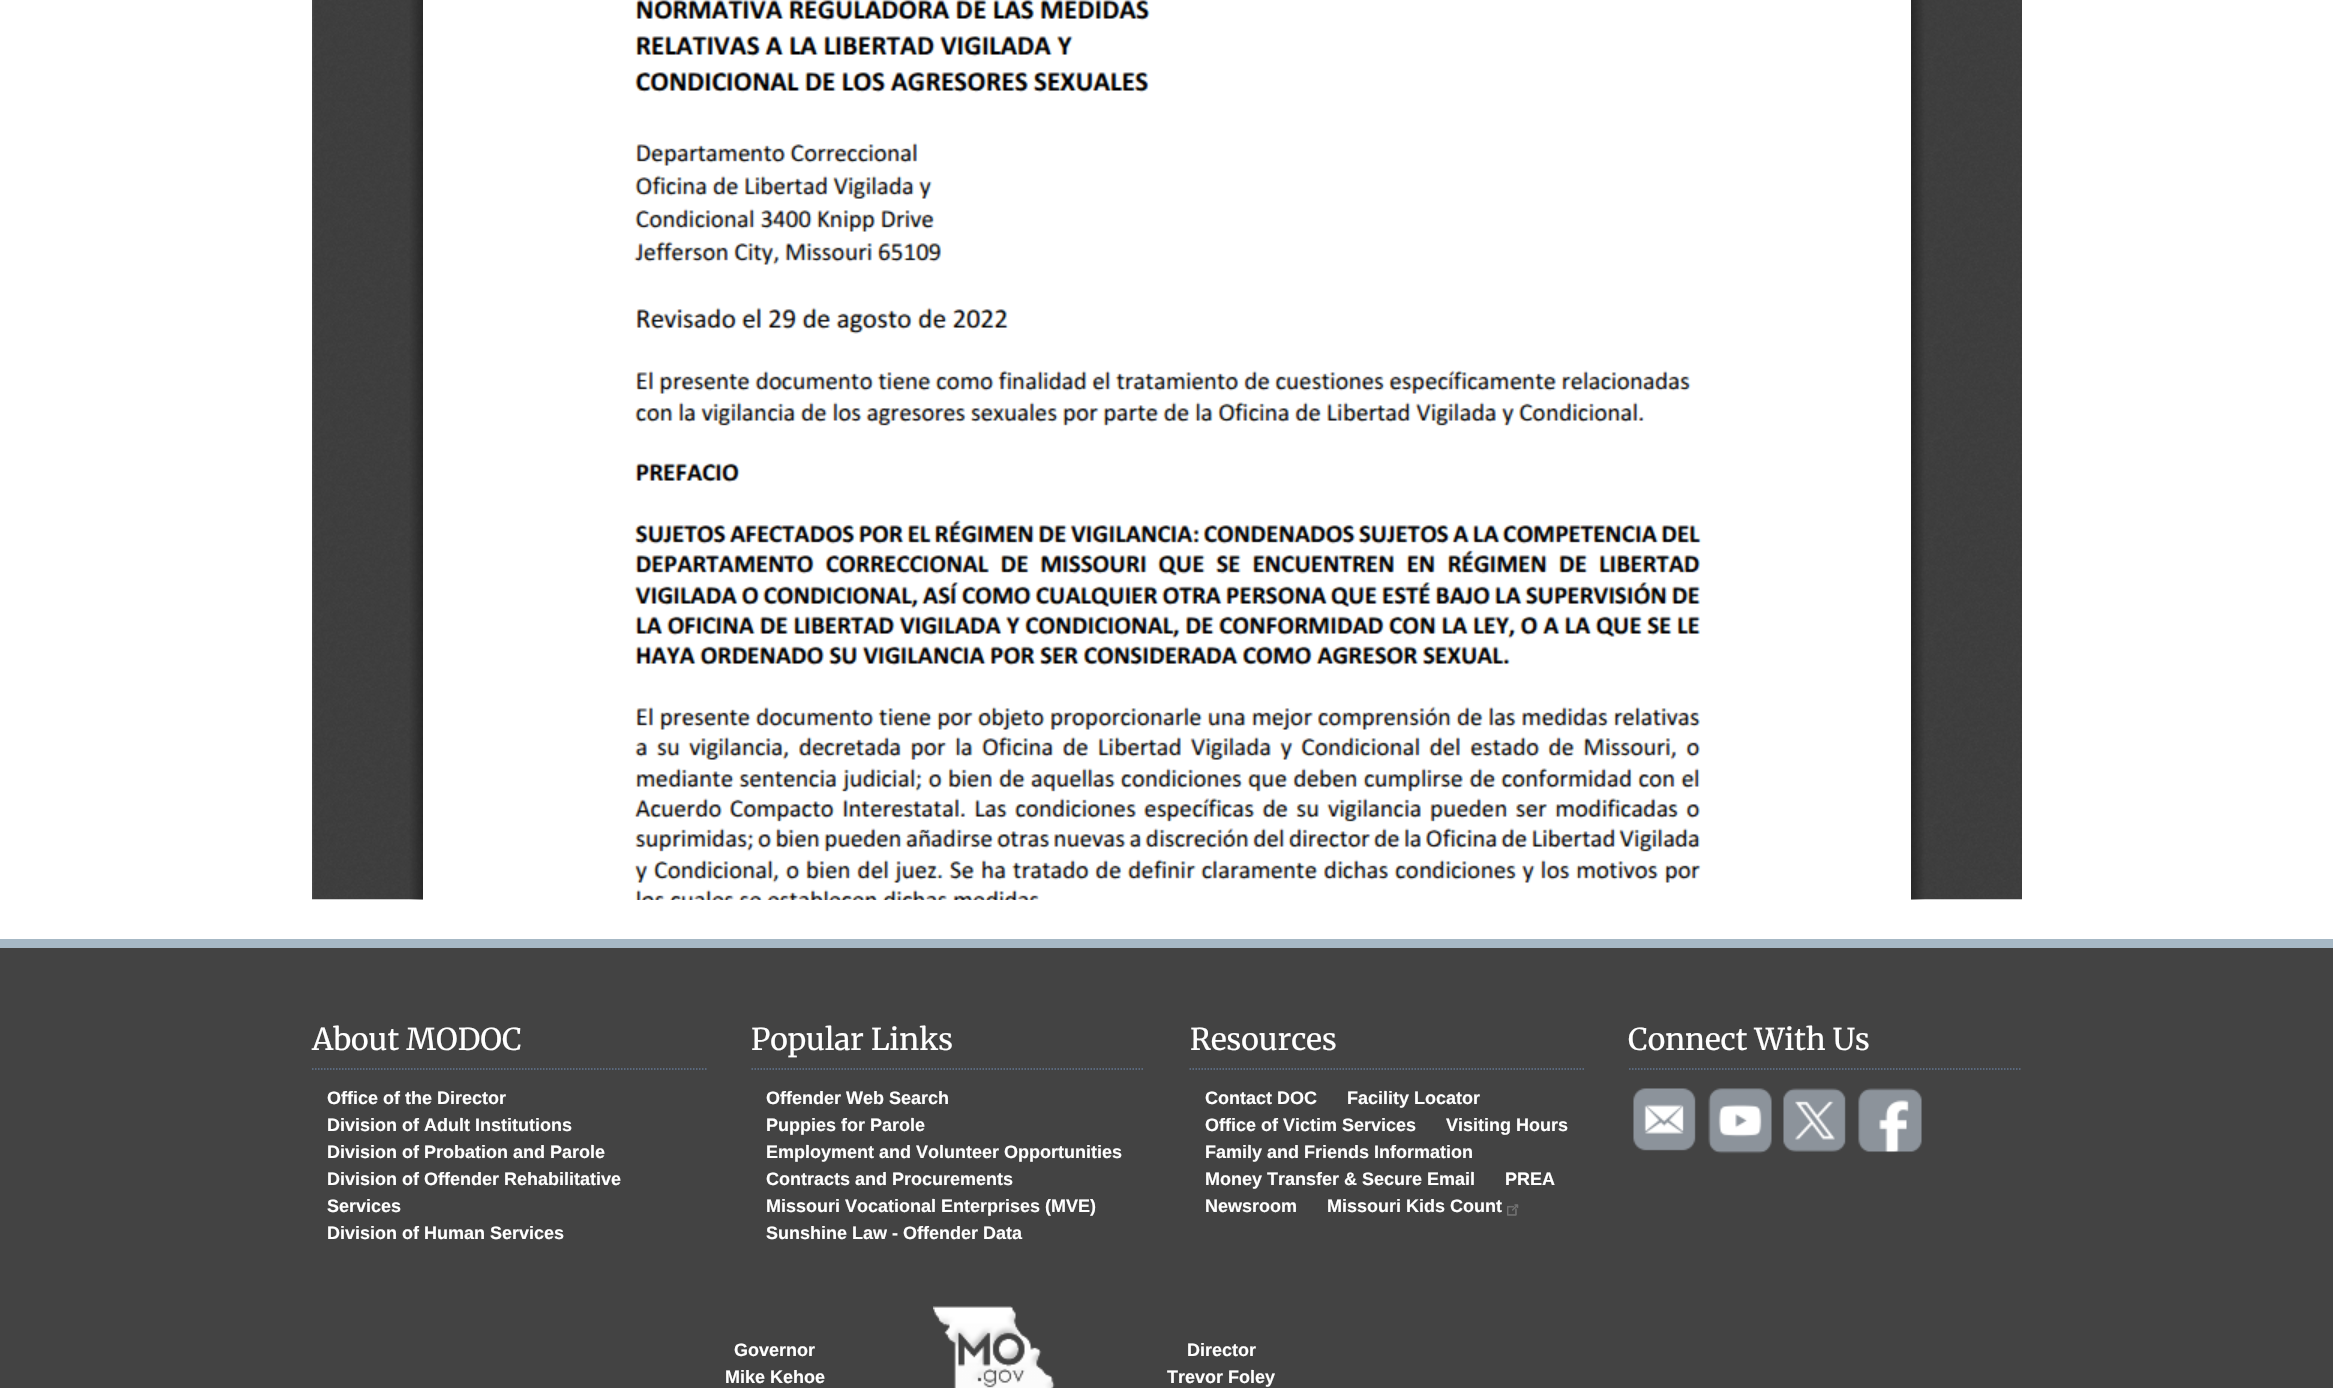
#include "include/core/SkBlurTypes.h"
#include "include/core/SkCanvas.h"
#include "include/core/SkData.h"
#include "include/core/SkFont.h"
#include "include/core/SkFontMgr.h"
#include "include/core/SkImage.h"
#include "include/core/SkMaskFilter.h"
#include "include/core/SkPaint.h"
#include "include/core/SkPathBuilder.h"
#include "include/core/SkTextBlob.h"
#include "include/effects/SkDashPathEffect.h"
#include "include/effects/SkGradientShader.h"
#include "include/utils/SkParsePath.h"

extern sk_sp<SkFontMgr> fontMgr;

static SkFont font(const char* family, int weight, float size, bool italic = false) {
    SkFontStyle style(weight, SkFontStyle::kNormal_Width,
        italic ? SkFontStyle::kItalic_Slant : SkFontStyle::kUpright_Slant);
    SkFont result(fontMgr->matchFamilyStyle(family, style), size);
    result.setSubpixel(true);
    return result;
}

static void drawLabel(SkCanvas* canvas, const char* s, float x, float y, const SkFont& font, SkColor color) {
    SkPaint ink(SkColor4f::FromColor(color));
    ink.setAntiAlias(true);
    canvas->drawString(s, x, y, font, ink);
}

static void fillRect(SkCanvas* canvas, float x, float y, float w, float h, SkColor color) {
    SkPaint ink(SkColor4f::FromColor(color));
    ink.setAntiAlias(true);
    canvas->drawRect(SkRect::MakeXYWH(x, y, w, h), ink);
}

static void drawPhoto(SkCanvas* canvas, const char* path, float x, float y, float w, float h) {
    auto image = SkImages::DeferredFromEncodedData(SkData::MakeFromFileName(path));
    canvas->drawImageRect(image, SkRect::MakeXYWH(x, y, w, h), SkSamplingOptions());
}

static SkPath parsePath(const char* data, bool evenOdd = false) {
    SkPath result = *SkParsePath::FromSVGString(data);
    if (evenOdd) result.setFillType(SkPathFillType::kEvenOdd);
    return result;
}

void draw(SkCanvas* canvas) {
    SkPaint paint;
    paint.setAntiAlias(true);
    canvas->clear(0xFFFFFFFF);
    drawPhoto(canvas, "assets/img1.png", 312, 0, 1710, 900);
    fillRect(canvas, 0, 948, 2333, 440, 0xFF434343);
    fillRect(canvas, 0, 939, 2333, 9, 0xFFA6B8C5);
    paint.setStroke(true);
    paint.setStrokeWidth(1.5f);
    paint.setColor(0xFF627691);
    paint.setPathEffect(SkDashPathEffect::Make({{1.5f, 1.5f}}, 0));
    canvas->drawPath(parsePath("M312 1069H706.5"), paint);
    paint.setPathEffect(nullptr);
    SkFont font1 = font("Merriweather", 300, 30);
    drawLabel(canvas, "About MODOC", 312, 1050, font1, 0xFFFFFFFF);
    SkFont font2 = font("Liberation Sans", 700, 18);
    drawLabel(canvas, "Office of the Director", 327, 1104, font2, 0xFFFFFFFF);
    drawLabel(canvas, "Division of Adult Institutions", 327, 1131, font2, 0xFFFFFFFF);
    drawLabel(canvas, "Division of Probation and Parole", 327, 1158, font2, 0xFFFFFFFF);
    drawLabel(canvas, "Division of Offender Rehabilitative", 327, 1185, font2, 0xFFFFFFFF);
    drawLabel(canvas, "Services", 327, 1212, font2, 0xFFFFFFFF);
    drawLabel(canvas, "Division of Human Services", 327, 1239, font2, 0xFFFFFFFF);
    paint.setPathEffect(SkDashPathEffect::Make({{1.5f, 1.5f}}, 0));
    canvas->drawPath(parsePath("M751.5 1069H1144.5"), paint);
    paint.setPathEffect(nullptr);
    drawLabel(canvas, "Popular Links", 751, 1050, font1, 0xFFFFFFFF);
    drawLabel(canvas, "Offender Web Search", 766, 1104, font2, 0xFFFFFFFF);
    drawLabel(canvas, "Puppies for Parole", 766, 1131, font2, 0xFFFFFFFF);
    drawLabel(canvas, "Employment and Volunteer Opportunities", 766, 1158, font2, 0xFFFFFFFF);
    drawLabel(canvas, "Contracts and Procurements", 766, 1185, font2, 0xFFFFFFFF);
    drawLabel(canvas, "Missouri Vocational Enterprises (MVE)", 766, 1212, font2, 0xFFFFFFFF);
    drawLabel(canvas, "Sunshine Law - Offender Data", 766, 1239, font2, 0xFFFFFFFF);
    paint.setPathEffect(SkDashPathEffect::Make({{1.5f, 1.5f}}, 0));
    canvas->drawPath(parsePath("M1189.5 1069H1584"), paint);
    paint.setPathEffect(nullptr);
    drawLabel(canvas, "Resources", 1190, 1050, font1, 0xFFFFFFFF);
    drawLabel(canvas, "Contact DOC", 1205, 1104, font2, 0xFFFFFFFF);
    drawLabel(canvas, "Facility Locator", 1347, 1104, font2, 0xFFFFFFFF);
    drawLabel(canvas, "Office of Victim Services", 1205, 1131, font2, 0xFFFFFFFF);
    drawLabel(canvas, "Visiting Hours", 1446, 1131, font2, 0xFFFFFFFF);
    drawLabel(canvas, "Family and Friends Information", 1205, 1158, font2, 0xFFFFFFFF);
    drawLabel(canvas, "Money Transfer & Secure Email", 1205, 1185, font2, 0xFFFFFFFF);
    drawLabel(canvas, "PREA", 1505, 1185, font2, 0xFFFFFFFF);
    drawLabel(canvas, "Newsroom", 1205, 1212, font2, 0xFFFFFFFF);
    drawLabel(canvas, "Missouri Kids Count", 1327, 1212, font2, 0xFFFFFFFF);
    drawPhoto(canvas, "assets/img2.png", 1507, 1204, 12, 12);
    paint.setPathEffect(SkDashPathEffect::Make({{1.5f, 1.5f}}, 0));
    canvas->drawPath(parsePath("M1629 1069H2022"), paint);
    paint.setPathEffect(nullptr);
    drawLabel(canvas, "Connect With Us", 1628, 1050, font1, 0xFFFFFFFF);
    drawPhoto(canvas, "assets/img3.png", 1633, 1088, 63, 63);
    drawPhoto(canvas, "assets/img4.png", 1708, 1088, 64, 66);
    drawPhoto(canvas, "assets/img5.png", 1783, 1088, 63, 64);
    drawPhoto(canvas, "assets/img6.png", 1858, 1088, 64, 65);
    drawLabel(canvas, "Governor", 734, 1356, font2, 0xFFFFFFFF);
    drawLabel(canvas, "Mike Kehoe", 725, 1383, font2, 0xFFFFFFFF);
    drawPhoto(canvas, "assets/img7.png", 933, 1306, 122, 82);
    drawLabel(canvas, "Director", 1187, 1356, font2, 0xFFFFFFFF);
    drawLabel(canvas, "Trevor Foley", 1167, 1383, font2, 0xFFFFFFFF);
}
